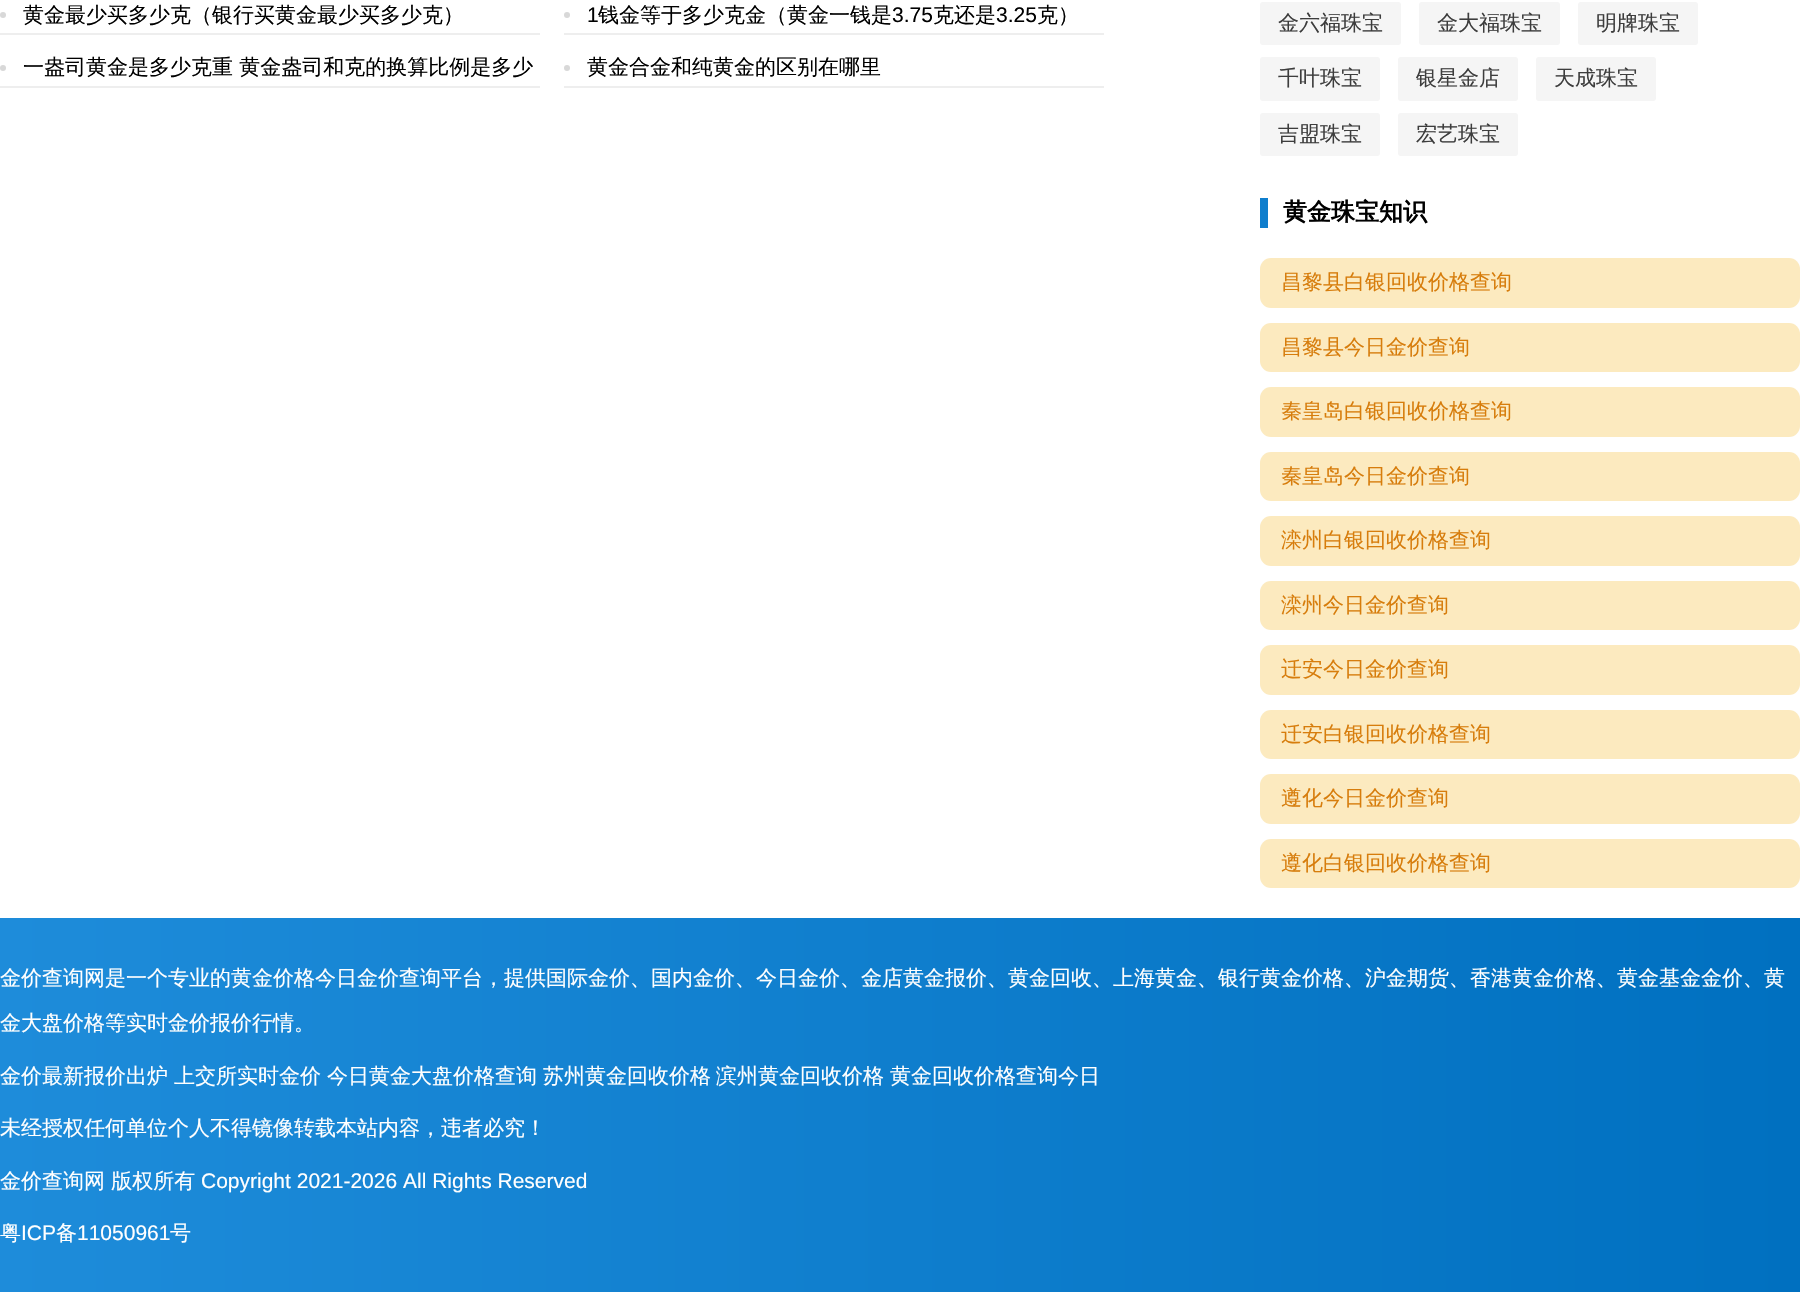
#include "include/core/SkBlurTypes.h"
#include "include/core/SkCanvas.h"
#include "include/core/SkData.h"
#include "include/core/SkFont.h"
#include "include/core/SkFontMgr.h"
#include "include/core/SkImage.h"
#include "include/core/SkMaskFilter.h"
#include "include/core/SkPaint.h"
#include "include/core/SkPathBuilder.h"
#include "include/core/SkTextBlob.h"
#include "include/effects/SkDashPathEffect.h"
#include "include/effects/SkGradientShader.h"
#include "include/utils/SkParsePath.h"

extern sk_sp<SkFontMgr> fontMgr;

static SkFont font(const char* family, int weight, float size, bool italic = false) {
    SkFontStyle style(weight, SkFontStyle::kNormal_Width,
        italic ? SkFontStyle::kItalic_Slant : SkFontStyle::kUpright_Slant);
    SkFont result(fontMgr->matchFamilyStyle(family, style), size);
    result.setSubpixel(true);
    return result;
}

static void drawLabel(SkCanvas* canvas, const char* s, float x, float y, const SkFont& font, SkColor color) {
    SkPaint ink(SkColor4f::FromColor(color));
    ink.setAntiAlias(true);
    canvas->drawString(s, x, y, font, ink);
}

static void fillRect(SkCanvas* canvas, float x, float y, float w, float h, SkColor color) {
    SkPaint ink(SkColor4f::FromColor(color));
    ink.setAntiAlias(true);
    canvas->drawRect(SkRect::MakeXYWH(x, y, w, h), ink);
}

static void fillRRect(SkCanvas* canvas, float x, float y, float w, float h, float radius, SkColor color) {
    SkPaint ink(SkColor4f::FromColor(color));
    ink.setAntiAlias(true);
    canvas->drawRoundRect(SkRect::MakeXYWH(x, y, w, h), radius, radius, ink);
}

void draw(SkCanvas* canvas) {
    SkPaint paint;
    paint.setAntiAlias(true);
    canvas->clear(0xFFFFFFFF);
    fillRect(canvas, 0, 33, 540, 2, 0xFFEEEEEE);
    paint.setColor(0xFFD8D8D8);
    canvas->drawCircle(3, 15, 3, paint);
    SkFont font1 = font("WenQuanYi Zen Hei", 500, 21);
    drawLabel(canvas, "黄金最少买多少克（银行买黄金最少买多少克）", 23, 22, font1, 0xFF000000);
    fillRect(canvas, 564, 33, 540, 2, 0xFFEEEEEE);
    canvas->drawCircle(567, 15, 3, paint);
    SkFont font2 = font("Liberation Sans", 400, 21);
    drawLabel(canvas, "1", 587, 22, font2, 0xFF000000);
    drawLabel(canvas, "钱金等于多少克金（黄金一钱是", 598, 22, font1, 0xFF000000);
    drawLabel(canvas, "3.75", 892, 22, font2, 0xFF000000);
    drawLabel(canvas, "克还是", 933, 22, font1, 0xFF000000);
    drawLabel(canvas, "3.25", 996, 22, font2, 0xFF000000);
    drawLabel(canvas, "克）", 1037, 22, font1, 0xFF000000);
    fillRect(canvas, 0, 86, 540, 2, 0xFFEEEEEE);
    canvas->drawCircle(3, 68, 3, paint);
    drawLabel(canvas, "一盎司黄金是多少克重 黄金盎司和克的换算比例是多少", 23, 74, font1, 0xFF000000);
    fillRect(canvas, 564, 86, 540, 2, 0xFFEEEEEE);
    canvas->drawCircle(567, 68, 3, paint);
    drawLabel(canvas, "黄金合金和纯黄金的区别在哪里", 587, 74, font1, 0xFF000000);
    fillRRect(canvas, 1260, 2, 141, 43, 3, 0xFFF5F5F5);
    drawLabel(canvas, "金六福珠宝", 1278, 30, font1, 0xFF3D3D3D);
    fillRRect(canvas, 1419, 2, 141, 43, 3, 0xFFF5F5F5);
    drawLabel(canvas, "金大福珠宝", 1437, 30, font1, 0xFF3D3D3D);
    fillRRect(canvas, 1578, 2, 120, 43, 3, 0xFFF5F5F5);
    drawLabel(canvas, "明牌珠宝", 1596, 30, font1, 0xFF3D3D3D);
    fillRRect(canvas, 1260, 57, 120, 44, 3, 0xFFF5F5F5);
    drawLabel(canvas, "千叶珠宝", 1278, 85, font1, 0xFF3D3D3D);
    fillRRect(canvas, 1398, 57, 120, 44, 3, 0xFFF5F5F5);
    drawLabel(canvas, "银星金店", 1416, 85, font1, 0xFF3D3D3D);
    fillRRect(canvas, 1536, 57, 120, 44, 3, 0xFFF5F5F5);
    drawLabel(canvas, "天成珠宝", 1554, 85, font1, 0xFF3D3D3D);
    fillRRect(canvas, 1260, 113, 120, 43, 3, 0xFFF5F5F5);
    drawLabel(canvas, "吉盟珠宝", 1278, 141, font1, 0xFF3D3D3D);
    fillRRect(canvas, 1398, 113, 120, 43, 3, 0xFFF5F5F5);
    drawLabel(canvas, "宏艺珠宝", 1416, 141, font1, 0xFF3D3D3D);
    fillRect(canvas, 1260, 198, 8, 30, 0xFF0F7ECD);
    SkFont font3 = font("WenQuanYi Zen Hei", 700, 24);
    drawLabel(canvas, "黄金珠宝知识", 1283, 220, font3, 0xFF000000);
    fillRRect(canvas, 1260, 258, 540, 50, 11, 0xFFFCEABF);
    drawLabel(canvas, "昌黎县白银回收价格查询", 1281, 289, font1, 0xFFD77D0C);
    fillRRect(canvas, 1260, 323, 540, 49, 11, 0xFFFCEABF);
    drawLabel(canvas, "昌黎县今日金价查询", 1281, 354, font1, 0xFFD77D0C);
    fillRRect(canvas, 1260, 387, 540, 50, 11, 0xFFFCEABF);
    drawLabel(canvas, "秦皇岛白银回收价格查询", 1281, 418, font1, 0xFFD77D0C);
    fillRRect(canvas, 1260, 452, 540, 49, 11, 0xFFFCEABF);
    drawLabel(canvas, "秦皇岛今日金价查询", 1281, 483, font1, 0xFFD77D0C);
    fillRRect(canvas, 1260, 516, 540, 50, 11, 0xFFFCEABF);
    drawLabel(canvas, "滦州白银回收价格查询", 1281, 547, font1, 0xFFD77D0C);
    fillRRect(canvas, 1260, 581, 540, 49, 11, 0xFFFCEABF);
    drawLabel(canvas, "滦州今日金价查询", 1281, 612, font1, 0xFFD77D0C);
    fillRRect(canvas, 1260, 645, 540, 50, 11, 0xFFFCEABF);
    drawLabel(canvas, "迁安今日金价查询", 1281, 676, font1, 0xFFD77D0C);
    fillRRect(canvas, 1260, 710, 540, 49, 11, 0xFFFCEABF);
    drawLabel(canvas, "迁安白银回收价格查询", 1281, 741, font1, 0xFFD77D0C);
    fillRRect(canvas, 1260, 774, 540, 50, 11, 0xFFFCEABF);
    drawLabel(canvas, "遵化今日金价查询", 1281, 805, font1, 0xFFD77D0C);
    fillRRect(canvas, 1260, 839, 540, 49, 11, 0xFFFCEABF);
    drawLabel(canvas, "遵化白银回收价格查询", 1281, 870, font1, 0xFFD77D0C);
    {
        const SkColor colors[] = {0xFF1E8CDA, 0xFF0070C0};
        const float stops[] = {0, 1};
        const SkPoint ends[] = {{0, 1106}, {1800, 1106}};
        paint.setShader(SkGradientShader::MakeLinear(ends, colors, stops, 2, SkTileMode::kClamp));
        paint.setAlpha(255);
    }
    canvas->drawRect(SkRect::MakeXYWH(0, 918, 1800, 374), paint);
    drawLabel(canvas, "金价查询网是一个专业的黄金价格今日金价查询平台，提供国际金价、国内金价、今日金价、金店黄金报价、黄金回收、上海黄金、银行黄金价格、沪金期货、香港黄金价格、黄金基金金价、黄", 0, 985, font1, 0xFFFFFFFF);
    drawLabel(canvas, "金大盘价格等实时金价报价行情。", 0, 1030, font1, 0xFFFFFFFF);
    drawLabel(canvas, "金价最新报价出炉", 0, 1083, font1, 0xFFFFFFFF);
    drawLabel(canvas, "上交所实时金价", 174, 1083, font1, 0xFFFFFFFF);
    drawLabel(canvas, "今日黄金大盘价格查询", 327, 1083, font1, 0xFFFFFFFF);
    drawLabel(canvas, "苏州黄金回收价格", 543, 1083, font1, 0xFFFFFFFF);
    drawLabel(canvas, "滨州黄金回收价格", 716, 1083, font1, 0xFFFFFFFF);
    drawLabel(canvas, "黄金回收价格查询今日", 890, 1083, font1, 0xFFFFFFFF);
    drawLabel(canvas, "未经授权任何单位个人不得镜像转载本站内容，违者必究！", 0, 1135, font1, 0xFFFFFFFF);
    drawLabel(canvas, "金价查询网 版权所有", 0, 1188, font1, 0xFFFFFFFF);
    drawLabel(canvas, "Copyright 2021-2026 All Rights Reserved", 201, 1188, font2, 0xFFFFFFFF);
    drawLabel(canvas, "粤", 0, 1240, font1, 0xFFFFFFFF);
    drawLabel(canvas, "ICP", 21, 1240, font2, 0xFFFFFFFF);
    drawLabel(canvas, "备", 56, 1240, font1, 0xFFFFFFFF);
    drawLabel(canvas, "11050961", 77, 1240, font2, 0xFFFFFFFF);
    drawLabel(canvas, "号", 170, 1240, font1, 0xFFFFFFFF);
}
